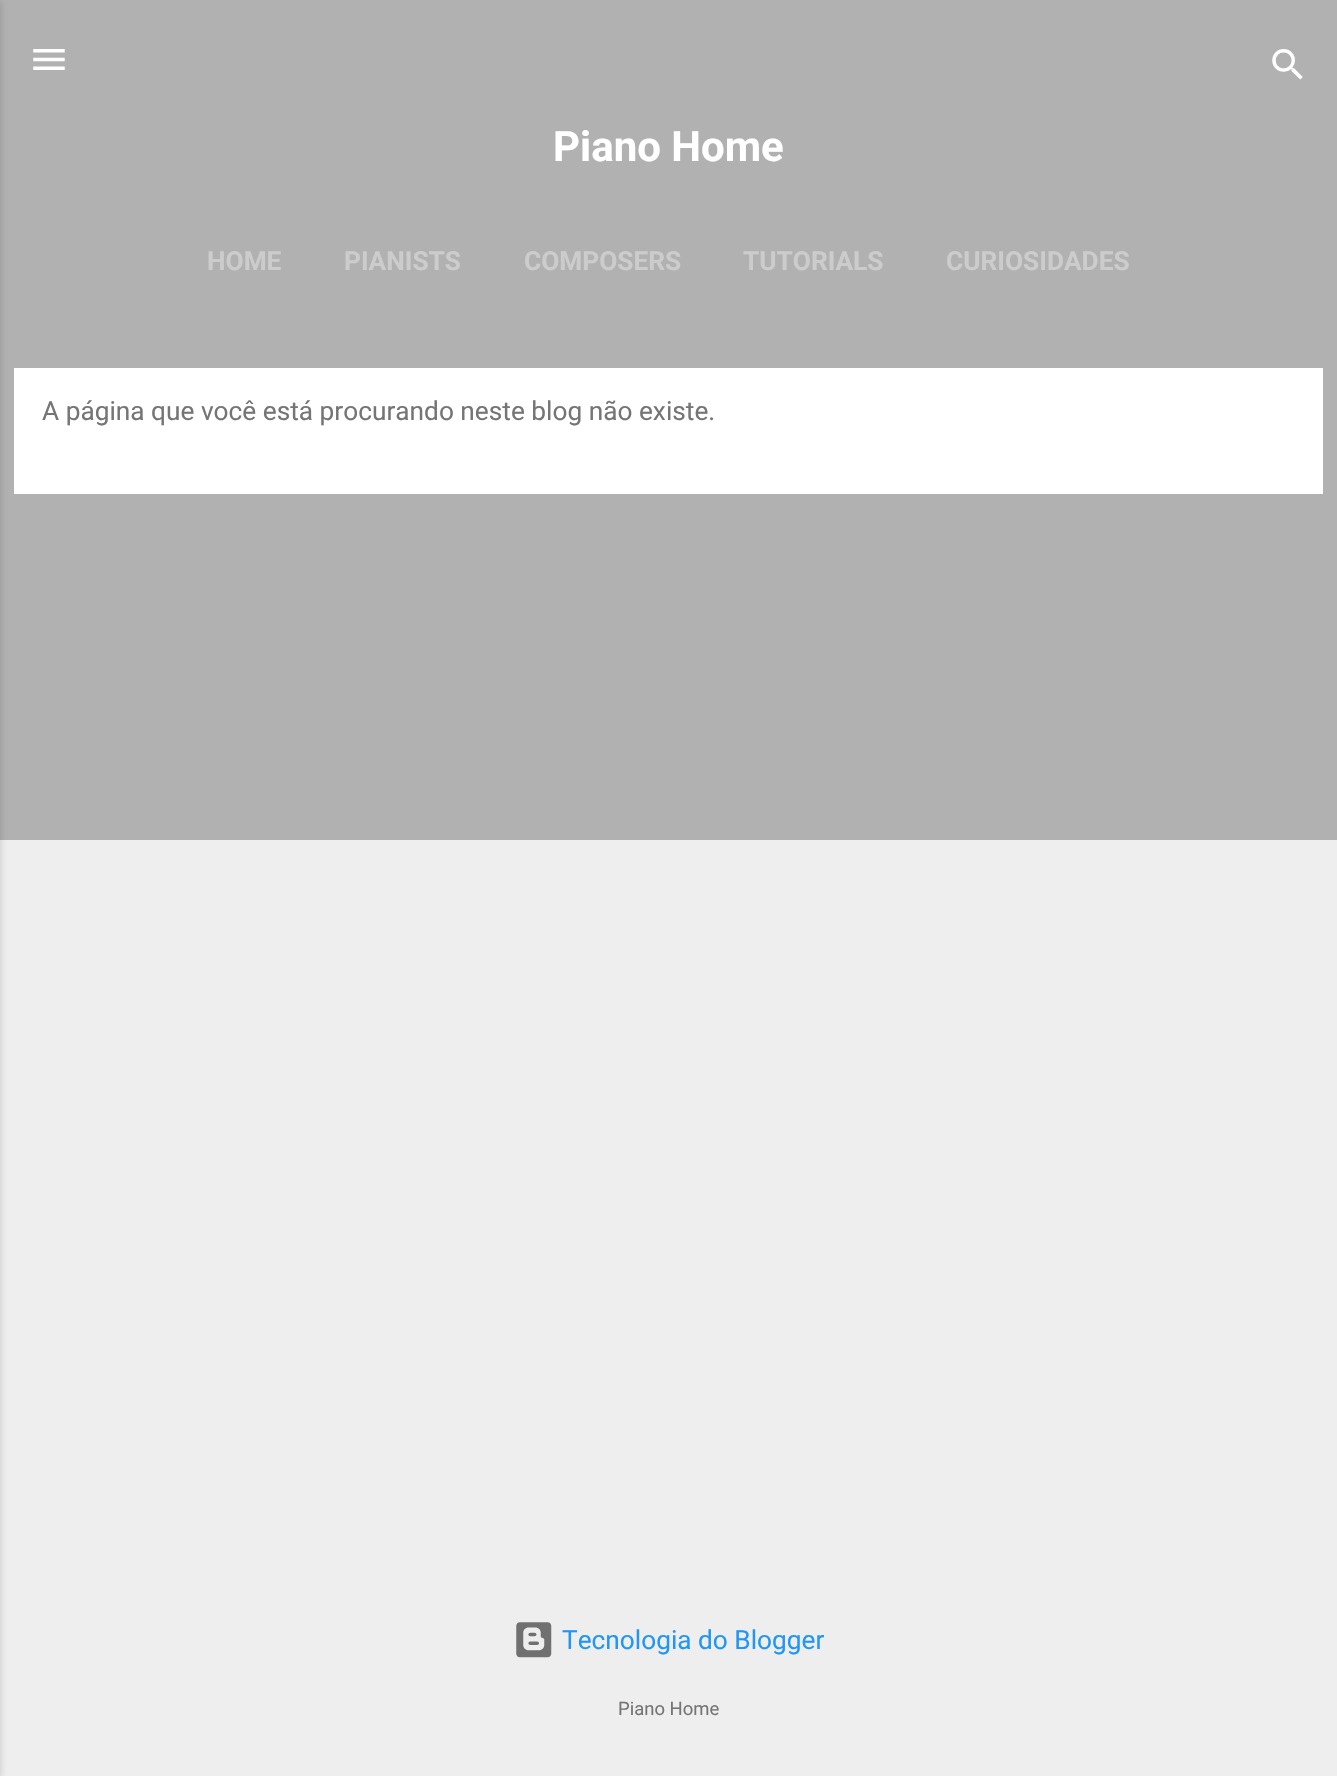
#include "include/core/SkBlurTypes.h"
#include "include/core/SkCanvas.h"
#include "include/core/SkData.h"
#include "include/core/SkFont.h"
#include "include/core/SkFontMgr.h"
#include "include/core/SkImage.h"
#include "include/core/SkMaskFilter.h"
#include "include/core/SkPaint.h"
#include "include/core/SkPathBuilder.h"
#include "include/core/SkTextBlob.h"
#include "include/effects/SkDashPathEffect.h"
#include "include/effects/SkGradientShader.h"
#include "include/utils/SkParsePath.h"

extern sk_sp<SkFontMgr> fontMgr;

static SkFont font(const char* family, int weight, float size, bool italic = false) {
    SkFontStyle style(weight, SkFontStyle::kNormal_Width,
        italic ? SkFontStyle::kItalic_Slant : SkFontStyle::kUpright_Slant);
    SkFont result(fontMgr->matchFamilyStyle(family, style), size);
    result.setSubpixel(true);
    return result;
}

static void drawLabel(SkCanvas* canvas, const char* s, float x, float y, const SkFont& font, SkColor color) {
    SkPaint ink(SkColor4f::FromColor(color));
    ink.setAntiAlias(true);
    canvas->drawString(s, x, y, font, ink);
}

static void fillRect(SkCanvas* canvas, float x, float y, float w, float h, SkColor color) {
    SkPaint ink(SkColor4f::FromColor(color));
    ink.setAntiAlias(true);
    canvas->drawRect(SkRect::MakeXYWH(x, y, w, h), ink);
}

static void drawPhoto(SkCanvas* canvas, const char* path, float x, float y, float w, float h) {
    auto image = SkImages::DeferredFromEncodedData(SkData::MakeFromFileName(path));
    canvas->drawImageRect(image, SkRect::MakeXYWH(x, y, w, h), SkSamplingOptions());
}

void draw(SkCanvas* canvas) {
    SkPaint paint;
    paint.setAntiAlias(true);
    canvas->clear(0xFFEEEEEE);
    fillRect(canvas, 0, 0, 1337, 840, 0xFFB1B1B1);
    paint.setColor(0x1A000000);
    paint.setMaskFilter(SkMaskFilter::MakeBlur(kNormal_SkBlurStyle, 2.5f));
    canvas->drawRect(SkRect::MakeXYWH(-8, 2, 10, 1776), paint);
    paint.setMaskFilter(nullptr);
    drawPhoto(canvas, "assets/img1.png", 33, 49, 32, 21);
    drawPhoto(canvas, "assets/img2.png", 1272, 49, 31, 31);
    SkFont font1 = font("Roboto", 700, 42);
    drawLabel(canvas, "Piano Home", 553, 161, font1, 0xFFFFFFFF);
    SkFont font2 = font("Roboto", 700, 26.25f);
    drawLabel(canvas, "HOME", 207, 270, font2, 0xFFCCCCCC);
    drawLabel(canvas, "PIANISTS", 344, 270, font2, 0xFFCCCCCC);
    drawLabel(canvas, "COMPOSERS", 524, 270, font2, 0xFFCCCCCC);
    drawLabel(canvas, "TUTORIALS", 743, 270, font2, 0xFFCCCCCC);
    drawLabel(canvas, "CURIOSIDADES", 946, 270, font2, 0xFFCCCCCC);
    fillRect(canvas, 14, 368, 1309, 126, 0xFFFFFFFF);
    SkFont font3 = font("Roboto", 400, 26.25f);
    drawLabel(canvas, "A página que você está procurando neste blog não existe.", 42, 420, font3, 0xFF757575);
    drawPhoto(canvas, "assets/img3.png", 516, 1622, 36, 36);
    drawLabel(canvas, "Tecnologia do Blogger", 562, 1649, font3, 0xFF2196F3);
    SkFont font4 = font("Roboto", 400, 18.5f);
    drawLabel(canvas, "Piano Home", 618, 1715, font4, 0xFF757575);
}
